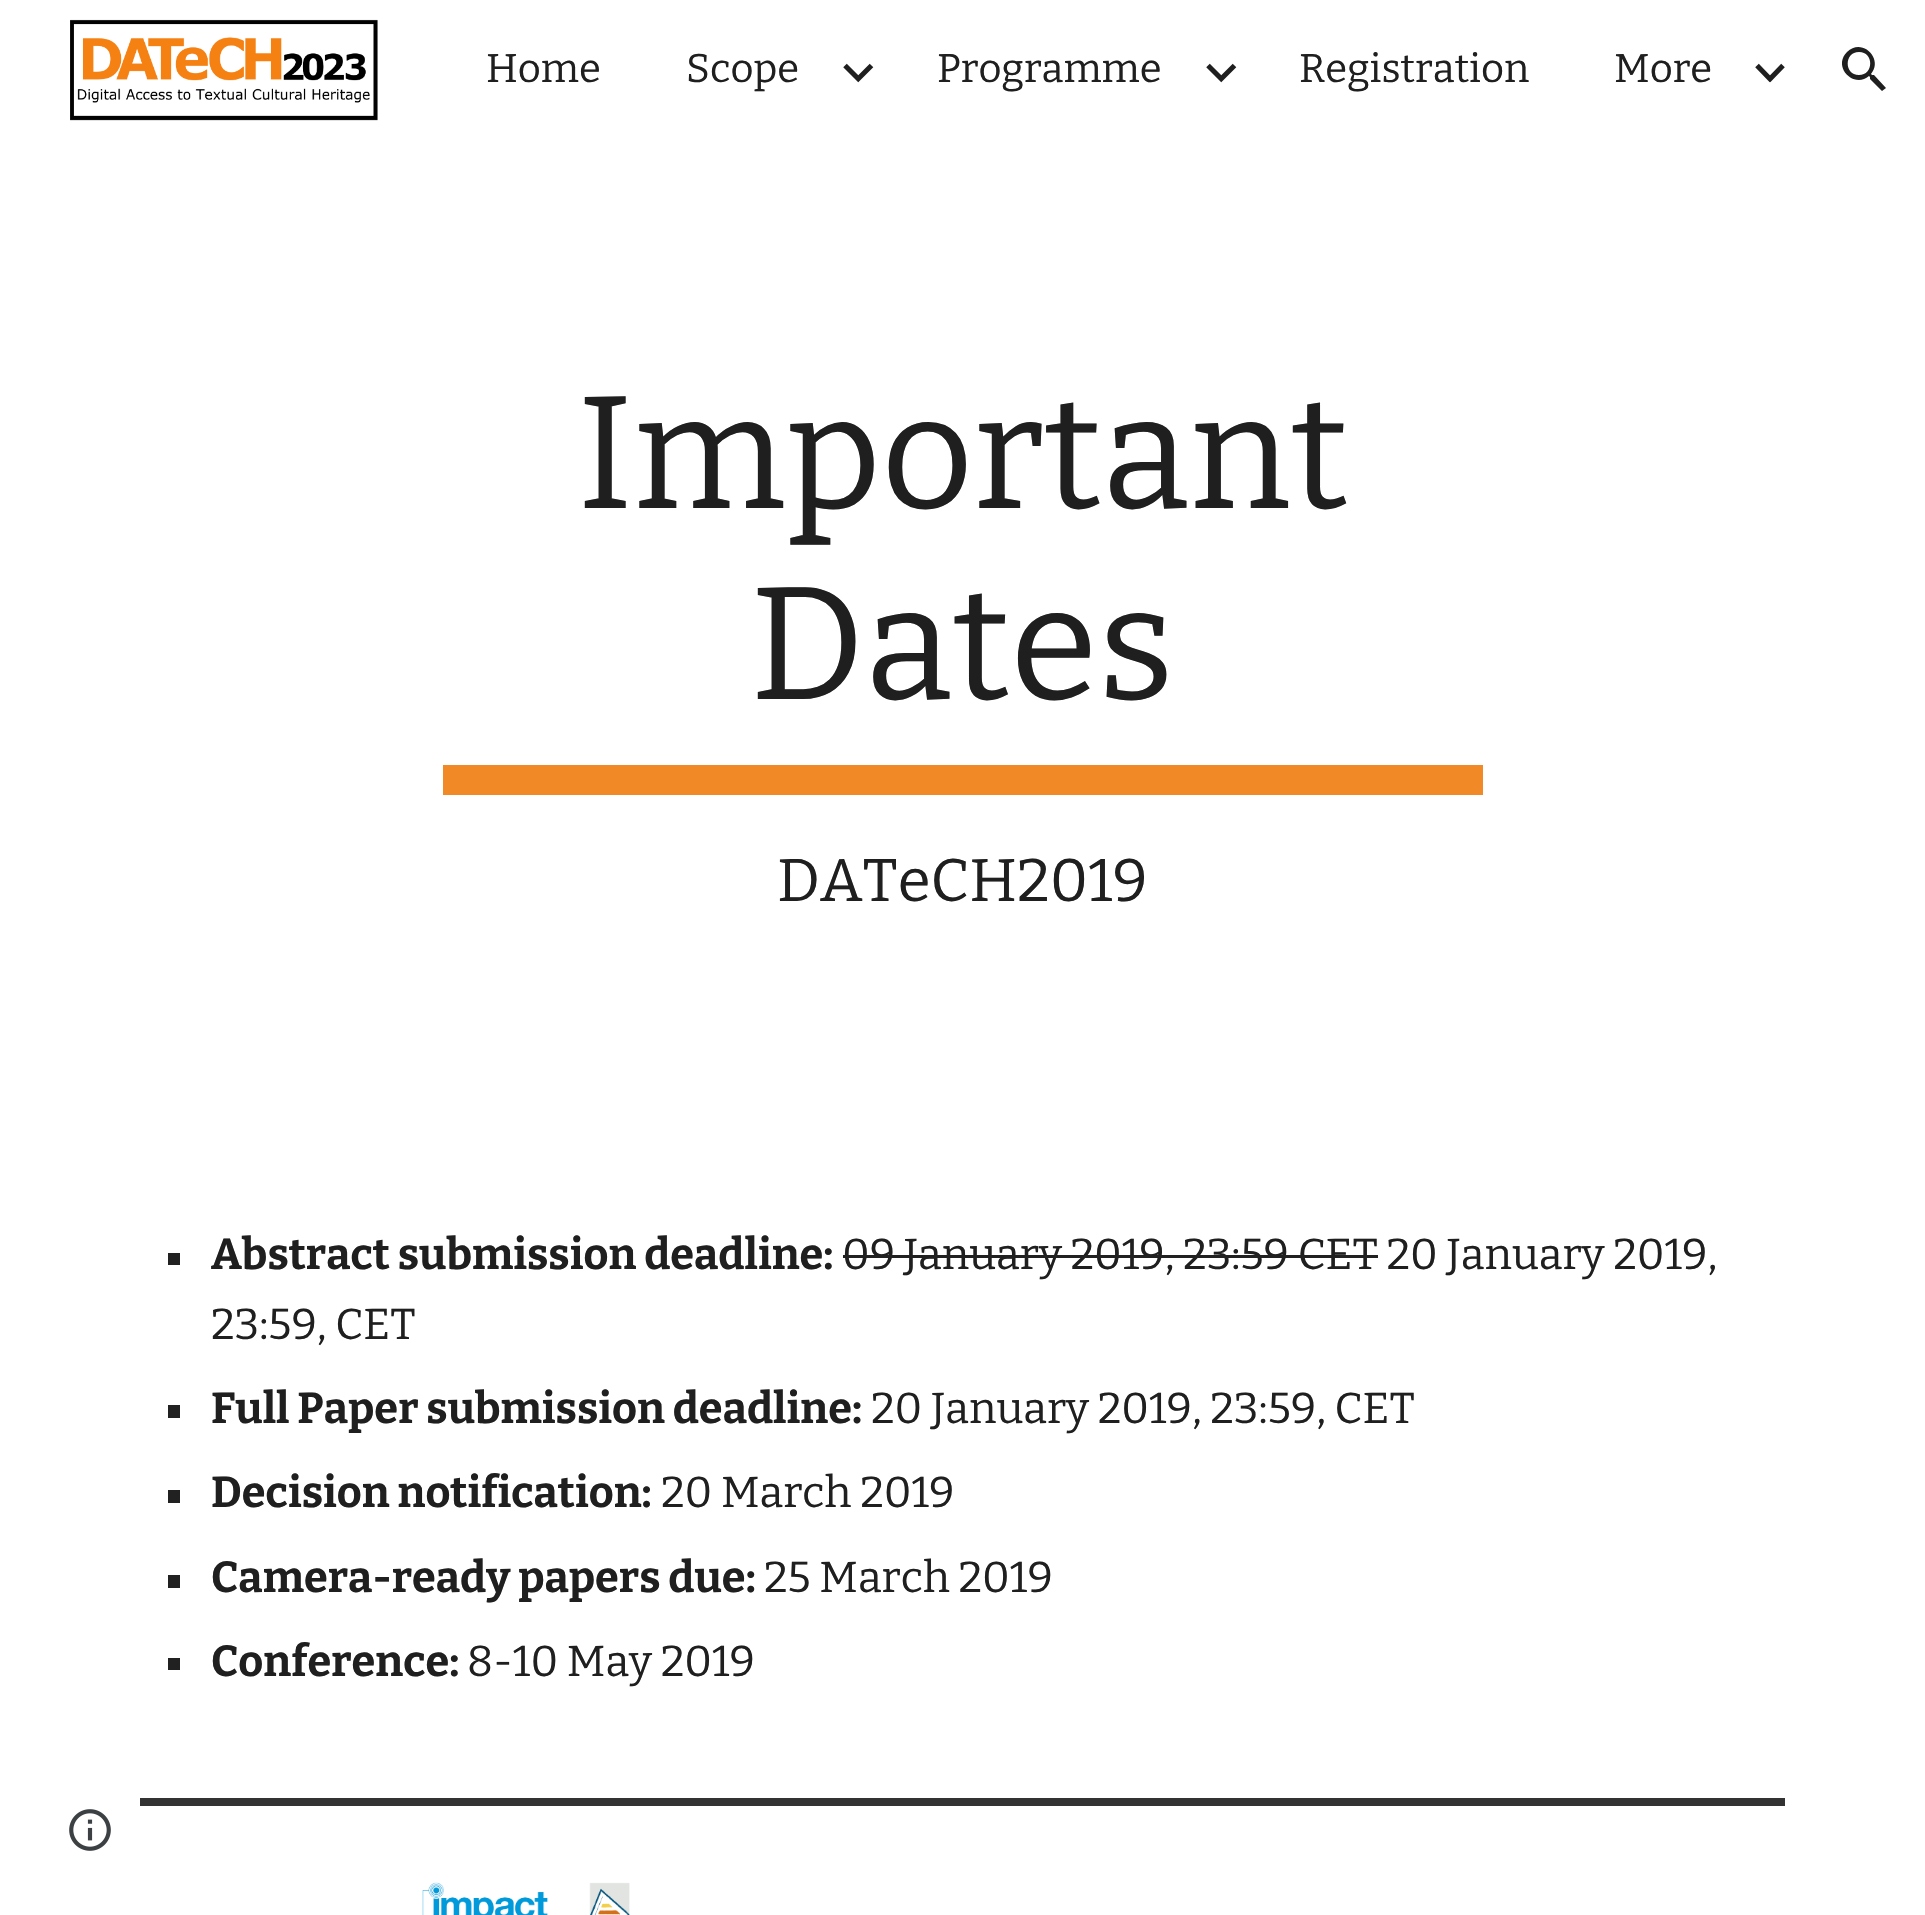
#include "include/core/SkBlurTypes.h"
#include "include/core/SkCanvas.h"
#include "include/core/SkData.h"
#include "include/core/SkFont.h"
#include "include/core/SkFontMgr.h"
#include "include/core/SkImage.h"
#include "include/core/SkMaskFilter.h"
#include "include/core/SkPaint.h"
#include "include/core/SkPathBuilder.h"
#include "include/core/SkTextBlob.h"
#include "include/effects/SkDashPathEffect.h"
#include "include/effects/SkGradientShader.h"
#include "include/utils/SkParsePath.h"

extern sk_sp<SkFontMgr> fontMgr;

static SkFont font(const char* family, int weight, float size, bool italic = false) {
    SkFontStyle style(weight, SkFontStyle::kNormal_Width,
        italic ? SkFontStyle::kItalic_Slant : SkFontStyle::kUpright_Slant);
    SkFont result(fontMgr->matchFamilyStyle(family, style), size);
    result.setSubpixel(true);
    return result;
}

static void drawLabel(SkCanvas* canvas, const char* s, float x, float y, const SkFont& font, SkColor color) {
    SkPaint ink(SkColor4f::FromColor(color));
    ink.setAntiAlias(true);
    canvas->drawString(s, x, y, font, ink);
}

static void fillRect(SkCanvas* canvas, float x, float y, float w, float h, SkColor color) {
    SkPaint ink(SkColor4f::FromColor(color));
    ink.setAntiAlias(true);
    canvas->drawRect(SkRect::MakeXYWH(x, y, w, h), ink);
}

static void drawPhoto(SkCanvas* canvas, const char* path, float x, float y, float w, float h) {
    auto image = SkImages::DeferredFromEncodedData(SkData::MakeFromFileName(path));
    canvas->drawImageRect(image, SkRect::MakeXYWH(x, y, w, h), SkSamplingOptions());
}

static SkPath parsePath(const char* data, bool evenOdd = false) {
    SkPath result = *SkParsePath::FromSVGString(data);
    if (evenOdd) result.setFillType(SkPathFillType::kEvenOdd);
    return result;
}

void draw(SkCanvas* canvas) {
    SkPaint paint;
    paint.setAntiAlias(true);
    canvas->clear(0xFFFFFFFF);
    drawPhoto(canvas, "assets/img1.png", 70, 19, 308, 102);
    SkFont font1 = font("Bitter", 400, 40);
    drawLabel(canvas, "Home", 486, 82, font1, 0xFF1F1F1F);
    drawLabel(canvas, "Scope", 686, 82, font1, 0xFF1F1F1F);
    paint.setStroke(true);
    paint.setStrokeWidth(5);
    paint.setColor(0xFF1F1F1F);
    canvas->drawPath(parsePath("M845 65.5L860 80.5M856.5 80.5L871.5 65.5"), paint);
    drawLabel(canvas, "Programme", 937, 82, font1, 0xFF1F1F1F);
    canvas->drawPath(parsePath("M1208 65.5L1223 80.5M1219.5 80.5L1234.5 65.5"), paint);
    drawLabel(canvas, "Registration", 1299, 82, font1, 0xFF1F1F1F);
    drawLabel(canvas, "More", 1614, 82, font1, 0xFF1F1F1F);
    canvas->drawPath(parsePath("M1757 65.5L1771.5 80.5M1768.5 80.5L1783 65.5"), paint);
    paint.setStroke(false);
    canvas->drawPath(parsePath("M1874 75H1872L1871 74C1884 59 1862 37 1847 52C1832 67 1854 89 1869 76L1870 77V79L1882 91L1886 88ZM1859 75C1844 75 1844 52 1859 52C1874 52 1874 75 1859 75Z"), paint);
    SkFont font2 = font("Bitter", 400, 160);
    drawLabel(canvas, "Important", 577, 508, font2, 0xFF1F1F1F);
    drawLabel(canvas, "Dates", 750, 699, font2, 0xFF1F1F1F);
    fillRect(canvas, 443, 765, 1040, 30, 0xFFF08926);
    SkFont font3 = font("Bitter", 400, 60);
    drawLabel(canvas, "DATeCH2019", 777, 901, font3, 0xFF1F1F1F);
    fillRect(canvas, 168, 1253, 12, 12, 0xFF212121);
    SkFont font4 = font("Bitter", 700, 43.3f);
    drawLabel(canvas, "Abstract submission deadline:", 211, 1269, font4, 0xFF1F1F1F);
    SkFont font5 = font("Bitter", 400, 43.3f);
    drawLabel(canvas, "09 January 2019, 23:59 CET 20 January 2019,", 842, 1269, font5, 0xFF1F1F1F);
    fillRect(canvas, 843, 1255, 535, 3, 0xFF212121);
    drawLabel(canvas, "23:59, CET", 211, 1339, font5, 0xFF1F1F1F);
    fillRect(canvas, 168, 1405, 12, 13, 0xFF212121);
    drawLabel(canvas, "Full Paper submission deadline:", 211, 1423, font4, 0xFF1F1F1F);
    drawLabel(canvas, "20 January 2019, 23:59, CET", 871, 1423, font5, 0xFF1F1F1F);
    fillRect(canvas, 168, 1490, 12, 13, 0xFF212121);
    drawLabel(canvas, "Decision notification:", 211, 1507, font4, 0xFF1F1F1F);
    drawLabel(canvas, "20 March 2019", 661, 1507, font5, 0xFF1F1F1F);
    fillRect(canvas, 168, 1575, 12, 13, 0xFF212121);
    drawLabel(canvas, "Camera-ready papers due:", 211, 1592, font4, 0xFF1F1F1F);
    drawLabel(canvas, "25 March 2019", 764, 1592, font5, 0xFF1F1F1F);
    fillRect(canvas, 168, 1658, 12, 12, 0xFF212121);
    drawLabel(canvas, "Conference:", 211, 1676, font4, 0xFF1F1F1F);
    drawLabel(canvas, "8-10 May 2019", 467, 1676, font5, 0xFF1F1F1F);
    drawPhoto(canvas, "assets/img2.png", 69, 1809, 42, 42);
    fillRect(canvas, 140, 1798, 1645, 8, 0xFF333333);
    drawPhoto(canvas, "assets/img3.png", 422, 1882, 208, 33);
}
